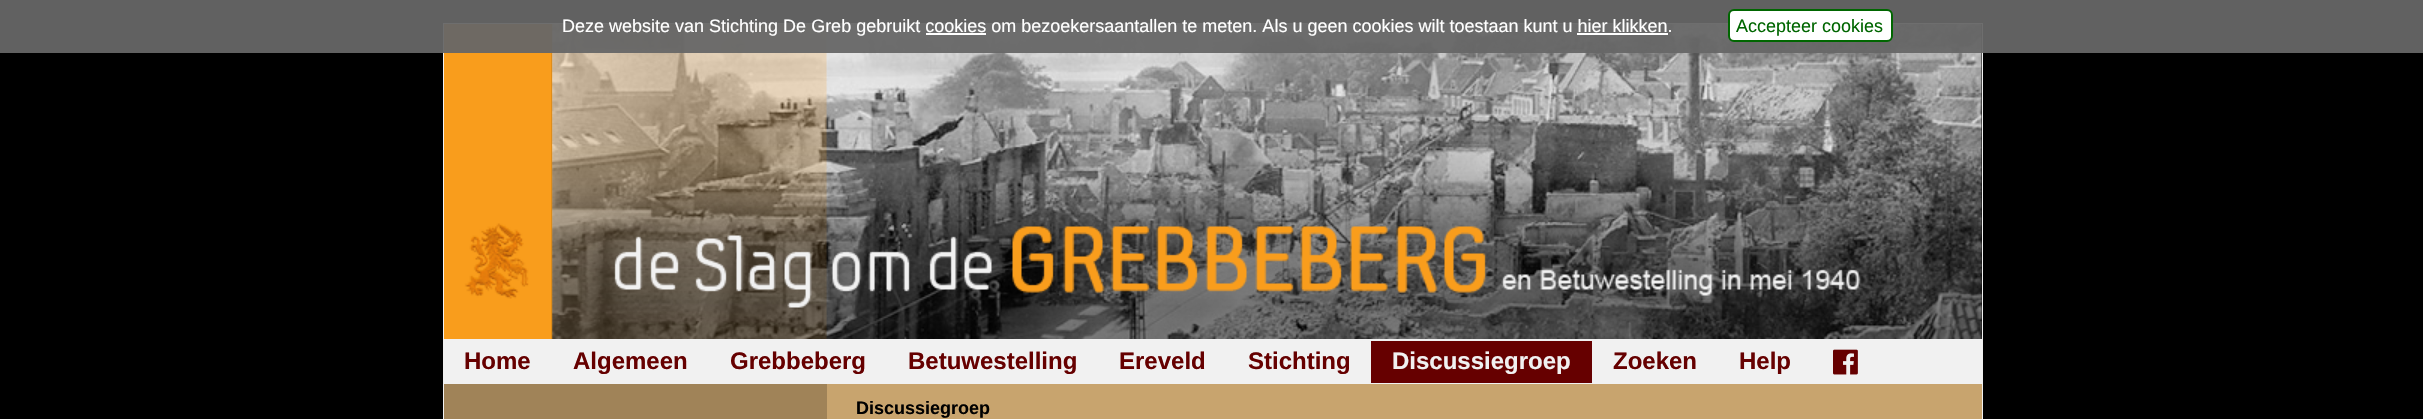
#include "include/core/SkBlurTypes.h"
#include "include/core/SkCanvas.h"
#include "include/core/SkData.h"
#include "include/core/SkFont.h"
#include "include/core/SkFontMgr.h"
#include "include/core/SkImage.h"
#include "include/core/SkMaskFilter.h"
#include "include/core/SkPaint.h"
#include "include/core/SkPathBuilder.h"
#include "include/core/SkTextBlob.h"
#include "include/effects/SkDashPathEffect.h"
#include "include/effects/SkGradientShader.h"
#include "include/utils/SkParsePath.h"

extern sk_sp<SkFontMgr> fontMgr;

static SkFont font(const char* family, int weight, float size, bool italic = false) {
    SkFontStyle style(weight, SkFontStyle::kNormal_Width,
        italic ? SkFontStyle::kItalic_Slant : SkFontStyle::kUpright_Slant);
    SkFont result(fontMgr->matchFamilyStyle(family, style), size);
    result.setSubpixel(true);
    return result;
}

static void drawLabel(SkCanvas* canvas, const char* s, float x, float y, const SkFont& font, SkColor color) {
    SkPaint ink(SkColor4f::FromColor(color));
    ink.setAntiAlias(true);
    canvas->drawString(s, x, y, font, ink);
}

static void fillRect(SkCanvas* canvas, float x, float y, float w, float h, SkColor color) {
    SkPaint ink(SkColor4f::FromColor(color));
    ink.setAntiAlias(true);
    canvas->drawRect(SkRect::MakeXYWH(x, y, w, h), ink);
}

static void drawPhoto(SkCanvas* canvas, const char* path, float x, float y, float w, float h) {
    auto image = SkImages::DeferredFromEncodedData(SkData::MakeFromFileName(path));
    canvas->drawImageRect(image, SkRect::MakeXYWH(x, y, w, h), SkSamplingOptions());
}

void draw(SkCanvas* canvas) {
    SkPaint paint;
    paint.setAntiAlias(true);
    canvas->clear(0xFF000000);
    paint.setStroke(true);
    paint.setStrokeWidth(2);
    paint.setColor(0xFFF1F1F1);
    canvas->drawRect(SkRect::MakeXYWH(444, 24, 1538, 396), paint);
    fillRect(canvas, 551, 24, 1431, 315, 0xFF000000);
    drawPhoto(canvas, "assets/img1.png", 552, 24, 1430, 315);
    drawPhoto(canvas, "assets/img2.png", 444, 24, 1538, 315);
    fillRect(canvas, 0, 0, 2423, 53, 0xF2666666);
    SkFont font1 = font("Liberation Sans", 400, 18);
    drawLabel(canvas, "Deze website van Stichting De Greb gebruikt cookies om bezoekersaantallen te meten. Als u geen cookies wilt toestaan kunt u hier klikken.", 562, 32, font1, 0xFFFFFFFF);
    paint.setStroke(false);
    paint.setColor(0xFFFFFFFF);
    canvas->drawRoundRect(SkRect::MakeXYWH(1729, 10, 163, 31), 5, 5, paint);
    paint.setStroke(true);
    paint.setColor(0xFF006600);
    canvas->drawRoundRect(SkRect::MakeXYWH(1729, 10, 163, 31), 5, 5, paint);
    drawLabel(canvas, "Accepteer cookies", 1736, 32, font1, 0xFF006600);
    fillRect(canvas, 926, 33, 60, 2, 0xFFFFFFFF);
    fillRect(canvas, 1577, 33, 91, 2, 0xFFFFFFFF);
    fillRect(canvas, 445, 339, 1536, 45, 0xFFF1F1F1);
    SkFont font2 = font("Liberation Sans", 700, 24);
    drawLabel(canvas, "Home", 464, 369, font2, 0xFF660000);
    drawLabel(canvas, "Algemeen", 573, 369, font2, 0xFF660000);
    drawLabel(canvas, "Grebbeberg", 730, 369, font2, 0xFF660000);
    drawLabel(canvas, "Betuwestelling", 908, 369, font2, 0xFF660000);
    drawLabel(canvas, "Ereveld", 1119, 369, font2, 0xFF660000);
    drawLabel(canvas, "Stichting", 1248, 369, font2, 0xFF660000);
    fillRect(canvas, 1371, 341, 221, 42, 0xFF660000);
    drawLabel(canvas, "Discussiegroep", 1392, 369, font2, 0xFFF1F1F1);
    drawLabel(canvas, "Zoeken", 1613, 369, font2, 0xFF660000);
    drawLabel(canvas, "Help", 1739, 369, font2, 0xFF660000);
    drawPhoto(canvas, "assets/img3.png", 1833, 349, 25, 26);
    fillRect(canvas, 444, 384, 383, 35, 0xFFA08358);
    fillRect(canvas, 827, 384, 1155, 35, 0xFFC8A46E);
    SkFont font3 = font("Liberation Sans", 700, 18);
    drawLabel(canvas, "Discussiegroep", 856, 414, font3, 0xFF000000);
}
